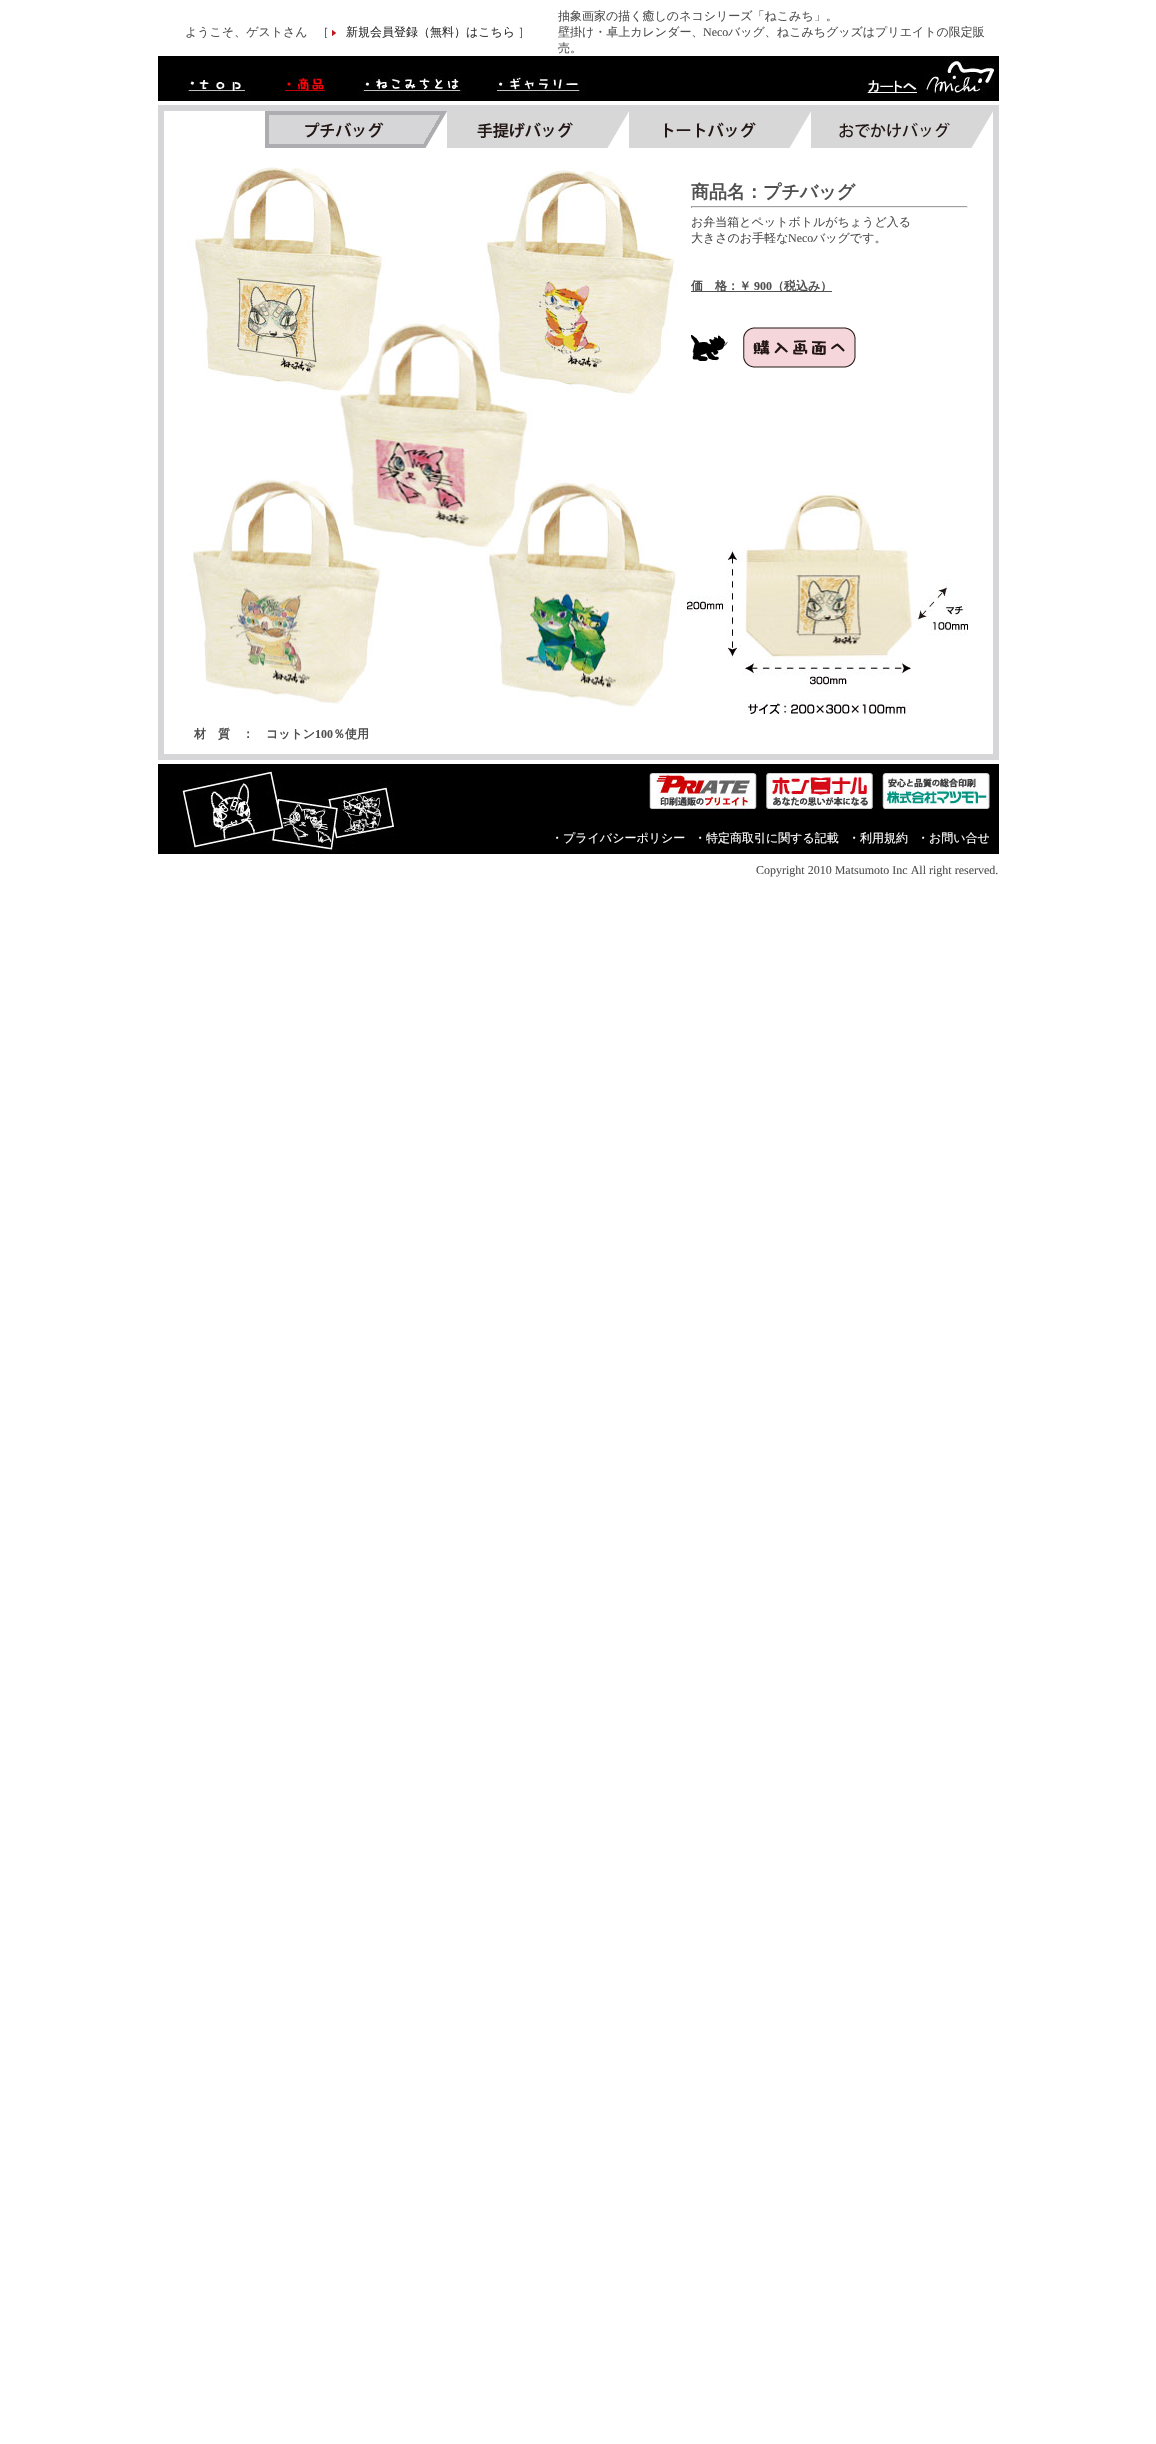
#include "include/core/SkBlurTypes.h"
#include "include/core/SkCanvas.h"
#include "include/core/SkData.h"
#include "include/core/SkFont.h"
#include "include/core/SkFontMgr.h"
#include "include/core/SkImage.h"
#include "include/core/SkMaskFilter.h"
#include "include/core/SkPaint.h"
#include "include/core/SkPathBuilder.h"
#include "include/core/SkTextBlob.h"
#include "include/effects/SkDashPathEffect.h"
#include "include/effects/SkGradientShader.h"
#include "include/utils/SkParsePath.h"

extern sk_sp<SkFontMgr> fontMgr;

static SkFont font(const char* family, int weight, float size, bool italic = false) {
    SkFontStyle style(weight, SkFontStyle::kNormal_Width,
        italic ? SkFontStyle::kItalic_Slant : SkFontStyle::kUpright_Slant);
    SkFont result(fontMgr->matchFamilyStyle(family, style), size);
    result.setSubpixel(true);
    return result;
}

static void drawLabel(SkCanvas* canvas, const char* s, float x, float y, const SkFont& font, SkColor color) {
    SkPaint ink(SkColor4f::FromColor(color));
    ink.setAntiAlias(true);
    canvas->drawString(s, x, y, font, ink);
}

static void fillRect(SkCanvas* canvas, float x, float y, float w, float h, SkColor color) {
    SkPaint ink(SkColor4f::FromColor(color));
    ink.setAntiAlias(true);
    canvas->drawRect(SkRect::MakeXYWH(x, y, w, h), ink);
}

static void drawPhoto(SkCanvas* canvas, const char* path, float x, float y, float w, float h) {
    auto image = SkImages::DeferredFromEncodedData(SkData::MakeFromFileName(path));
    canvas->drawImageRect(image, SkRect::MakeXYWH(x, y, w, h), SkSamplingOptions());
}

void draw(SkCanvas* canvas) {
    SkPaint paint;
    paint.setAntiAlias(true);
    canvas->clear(0xFFFFFFFF);
    SkFont font1 = font("WenQuanYi Zen Hei", 500, 12);
    drawLabel(canvas, "ようこそ、ゲストさん", 185, 36, font1, 0xFF505050);
    drawLabel(canvas, "［", 317, 36, font1, 0xFF505050);
    drawPhoto(canvas, "assets/img1.png", 332, 30, 4, 6);
    drawLabel(canvas, "新規会員登録（無料）はこちら", 346, 36, font1, 0xFF333333);
    drawLabel(canvas, "］", 518, 36, font1, 0xFF505050);
    drawLabel(canvas, "抽象画家の描く癒しのネコシリーズ「ねこみち」。", 558, 20, font1, 0xFF505050);
    drawLabel(canvas, "壁掛け・卓上カレンダー、", 558, 36, font1, 0xFF505050);
    SkFont font2 = font("Liberation Serif", 400, 12);
    drawLabel(canvas, "Neco", 703, 36, font2, 0xFF505050);
    drawLabel(canvas, "バッグ、ねこみちグッズはプリエイトの限定販", 728, 36, font1, 0xFF505050);
    drawLabel(canvas, "売。", 558, 52, font1, 0xFF505050);
    fillRect(canvas, 158, 56, 841, 45, 0xFF000000);
    drawPhoto(canvas, "assets/img2.png", 186, 80, 64, 16);
    drawPhoto(canvas, "assets/img3.png", 285, 72, 40, 24);
    drawPhoto(canvas, "assets/img4.png", 357, 72, 110, 24);
    drawPhoto(canvas, "assets/img5.png", 497, 72, 88, 24);
    drawPhoto(canvas, "assets/img6.png", 861, 80, 56, 16);
    drawPhoto(canvas, "assets/img7.png", 924, 56, 71, 40);
    paint.setStroke(true);
    paint.setStrokeWidth(6);
    paint.setColor(0xFFD6D6D8);
    canvas->drawRect(SkRect::MakeXYWH(161, 108, 835, 649), paint);
    drawPhoto(canvas, "assets/img8.png", 265, 111, 182, 37);
    drawPhoto(canvas, "assets/img9.png", 447, 111, 182, 37);
    drawPhoto(canvas, "assets/img10.png", 629, 111, 182, 37);
    drawPhoto(canvas, "assets/img11.png", 811, 111, 182, 37);
    drawPhoto(canvas, "assets/img12.png", 189, 167, 488, 545);
    SkFont font3 = font("WenQuanYi Zen Hei", 700, 18);
    drawLabel(canvas, "商品名：プチバッグ", 691, 198, font3, 0xFF505050);
    fillRect(canvas, 691, 206, 277, 1, 0xFF9F9F9F);
    fillRect(canvas, 967, 206, 1, 2, 0xFFEEEEEE);
    fillRect(canvas, 691, 207, 277, 1, 0xFFEEEEEE);
    fillRect(canvas, 691, 206, 1, 2, 0xFF9F9F9F);
    drawLabel(canvas, "お弁当箱とペットボトルがちょうど入る", 691, 226, font1, 0xFF505050);
    drawLabel(canvas, "大きさのお手軽な", 691, 242, font1, 0xFF505050);
    drawLabel(canvas, "Neco", 788, 242, font2, 0xFF505050);
    drawLabel(canvas, "バッグです。", 813, 242, font1, 0xFF505050);
    fillRect(canvas, 691, 291, 141, 1, 0xFF505050);
    SkFont font4 = font("WenQuanYi Zen Hei", 700, 12);
    drawLabel(canvas, "価　格：￥", 691, 290, font4, 0xFF505050);
    SkFont font5 = font("Liberation Serif", 700, 12);
    drawLabel(canvas, "900", 754, 290, font5, 0xFF505050);
    drawLabel(canvas, "（税込み）", 772, 290, font4, 0xFF505050);
    drawPhoto(canvas, "assets/img13.png", 691, 327, 165, 41);
    drawPhoto(canvas, "assets/img14.png", 687, 492, 281, 222);
    drawLabel(canvas, "材　質　：　コットン", 194, 738, font4, 0xFF505050);
    drawLabel(canvas, "100", 315, 738, font5, 0xFF505050);
    drawLabel(canvas, "％使用", 333, 738, font4, 0xFF505050);
    fillRect(canvas, 158, 764, 241, 90, 0xFF000000);
    drawPhoto(canvas, "assets/img15.png", 178, 770, 216, 82);
    fillRect(canvas, 399, 764, 600, 90, 0xFF000000);
    drawPhoto(canvas, "assets/img16.png", 649, 773, 108, 37);
    drawPhoto(canvas, "assets/img17.png", 766, 773, 107, 37);
    drawPhoto(canvas, "assets/img18.png", 882, 773, 108, 37);
    drawLabel(canvas, "・プライバシーポリシー", 551, 842, font1, 0xFFFFFFFF);
    drawLabel(canvas, "・特定商取引に関する記載", 694, 842, font1, 0xFFFFFFFF);
    drawLabel(canvas, "・利用規約", 848, 842, font1, 0xFFFFFFFF);
    drawLabel(canvas, "・お問い合せ", 917, 842, font1, 0xFFFFFFFF);
    drawLabel(canvas, "Copyright 2010 Matsumoto Inc All right reserved.", 756, 874, font2, 0xFF505050);
}
